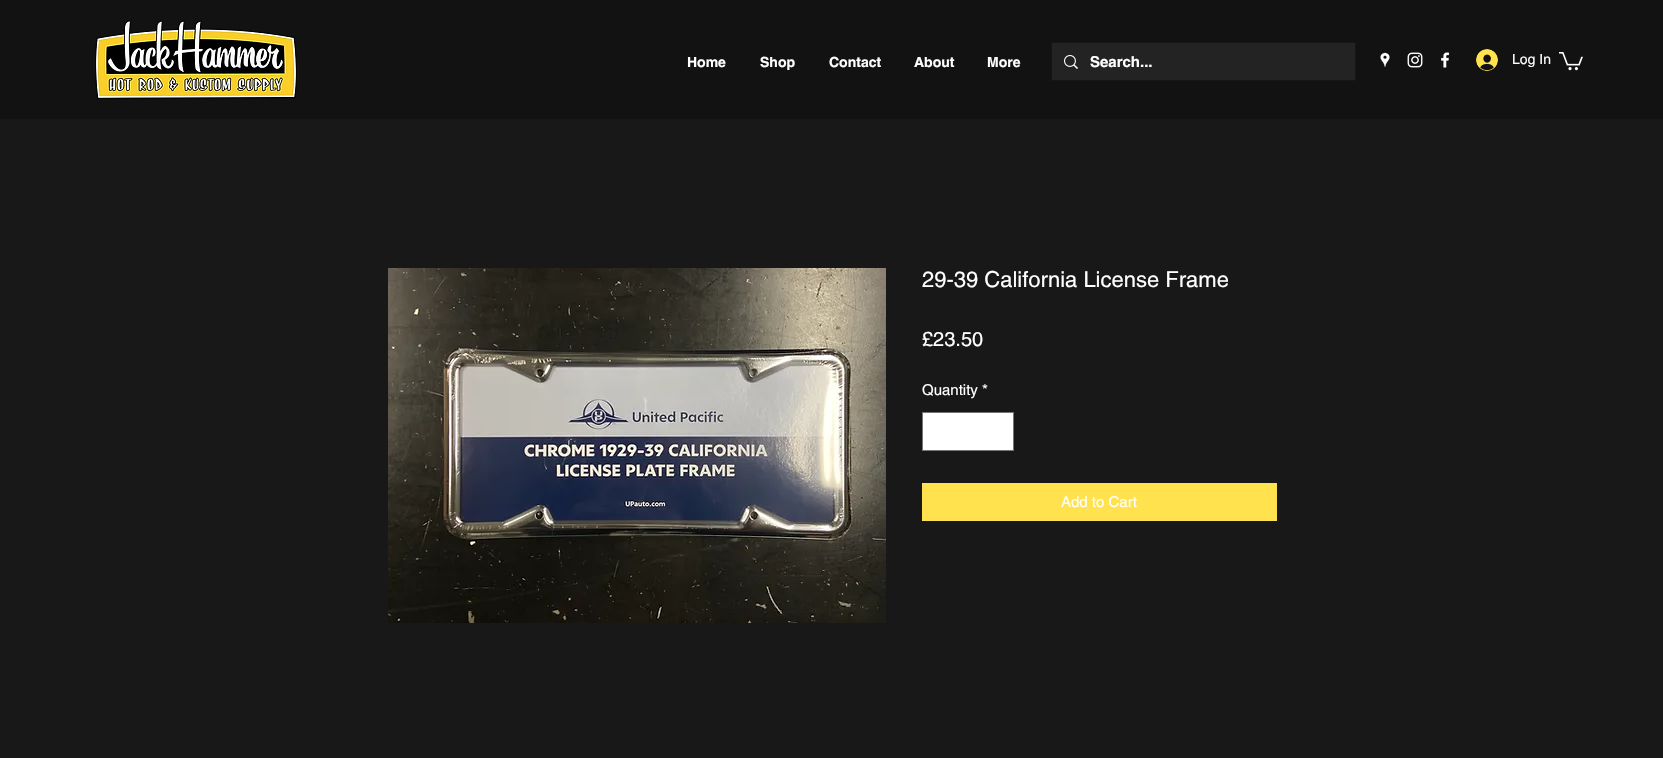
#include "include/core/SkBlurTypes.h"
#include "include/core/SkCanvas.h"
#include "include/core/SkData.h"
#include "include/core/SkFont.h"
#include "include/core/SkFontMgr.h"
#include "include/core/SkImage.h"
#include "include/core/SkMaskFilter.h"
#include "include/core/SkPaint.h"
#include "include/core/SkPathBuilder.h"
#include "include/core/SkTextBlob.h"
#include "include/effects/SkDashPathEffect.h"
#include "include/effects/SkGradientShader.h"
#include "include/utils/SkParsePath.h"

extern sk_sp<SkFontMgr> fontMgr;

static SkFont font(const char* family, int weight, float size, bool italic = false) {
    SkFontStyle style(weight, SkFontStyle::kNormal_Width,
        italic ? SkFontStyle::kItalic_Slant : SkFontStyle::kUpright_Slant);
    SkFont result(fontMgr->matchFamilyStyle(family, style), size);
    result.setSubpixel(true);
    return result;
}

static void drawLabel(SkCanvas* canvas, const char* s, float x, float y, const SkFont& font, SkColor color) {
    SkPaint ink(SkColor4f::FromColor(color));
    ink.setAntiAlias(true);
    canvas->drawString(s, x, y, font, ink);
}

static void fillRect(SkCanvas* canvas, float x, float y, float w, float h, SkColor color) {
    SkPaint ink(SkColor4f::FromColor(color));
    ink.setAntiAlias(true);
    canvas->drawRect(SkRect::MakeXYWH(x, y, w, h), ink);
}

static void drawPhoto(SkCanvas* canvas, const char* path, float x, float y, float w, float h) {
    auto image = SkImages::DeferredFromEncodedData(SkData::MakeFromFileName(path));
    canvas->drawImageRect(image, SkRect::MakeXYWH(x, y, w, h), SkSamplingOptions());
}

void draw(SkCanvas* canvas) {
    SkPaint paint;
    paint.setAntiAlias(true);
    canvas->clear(0xFF181818);
    fillRect(canvas, 0, 0, 1663, 119, 0xFF121212);
    drawPhoto(canvas, "assets/img1.png", 95, 20, 202, 79);
    SkFont font1 = font("helvetica", 700, 14);
    drawLabel(canvas, "Home", 687, 67, font1, 0xFFFFFFFF);
    drawLabel(canvas, "Shop", 760, 67, font1, 0xFFFFFFFF);
    drawLabel(canvas, "Contact", 829, 67, font1, 0xFFFFFFFF);
    drawLabel(canvas, "About", 914, 67, font1, 0xFFFFFFFF);
    drawLabel(canvas, "More", 987, 67, font1, 0xFFFFFFFF);
    paint.setStroke(true);
    paint.setStrokeWidth(1);
    paint.setColor(0xFF161616);
    canvas->drawRect(SkRect::MakeXYWH(1051.5f, 42.5f, 304, 38), paint);
    fillRect(canvas, 1052, 43, 303, 37, 0xFF232323);
    drawPhoto(canvas, "assets/img2.png", 1064, 55, 14, 14);
    SkFont font2 = font("helvetica", 700, 15);
    drawLabel(canvas, "Search...", 1090, 67, font2, 0xFFFFFFFF);
    drawPhoto(canvas, "assets/img3.png", 1380, 52, 10, 15);
    drawPhoto(canvas, "assets/img4.png", 1407, 52, 16, 16);
    drawPhoto(canvas, "assets/img5.png", 1441, 52, 9, 16);
    drawPhoto(canvas, "assets/img6.png", 1476, 49, 22, 22);
    SkFont font3 = font("helvetica", 400, 14);
    drawLabel(canvas, "Log In", 1512, 64, font3, 0xFFFFFFFF);
    drawPhoto(canvas, "assets/img7.png", 1559, 52, 24, 19);
    drawPhoto(canvas, "assets/img8.png", 388, 268, 498, 355);
    SkFont font4 = font("helvetica", 400, 22);
    drawLabel(canvas, "29-39 California License Frame", 922, 287, font4, 0xFFFFFFFF);
    SkFont font5 = font("helvetica", 400, 20);
    drawLabel(canvas, "£23.50", 922, 346, font5, 0xFFFFFFFF);
    SkFont font6 = font("helvetica", 400, 15);
    drawLabel(canvas, "Quantity *", 922, 395, font6, 0xFFFFFFFF);
    paint.setStroke(false);
    paint.setColor(0xFFFFFFFF);
    canvas->drawRect(SkRect::MakeXYWH(922.5f, 412.5f, 91, 38), paint);
    paint.setStroke(true);
    paint.setColor(0xFF747474);
    canvas->drawRect(SkRect::MakeXYWH(922.5f, 412.5f, 91, 38), paint);
    fillRect(canvas, 922, 483, 355, 38, 0xFFFFE24E);
    drawLabel(canvas, "Add to Cart", 1061, 507, font6, 0xFFFFFFFF);
}
